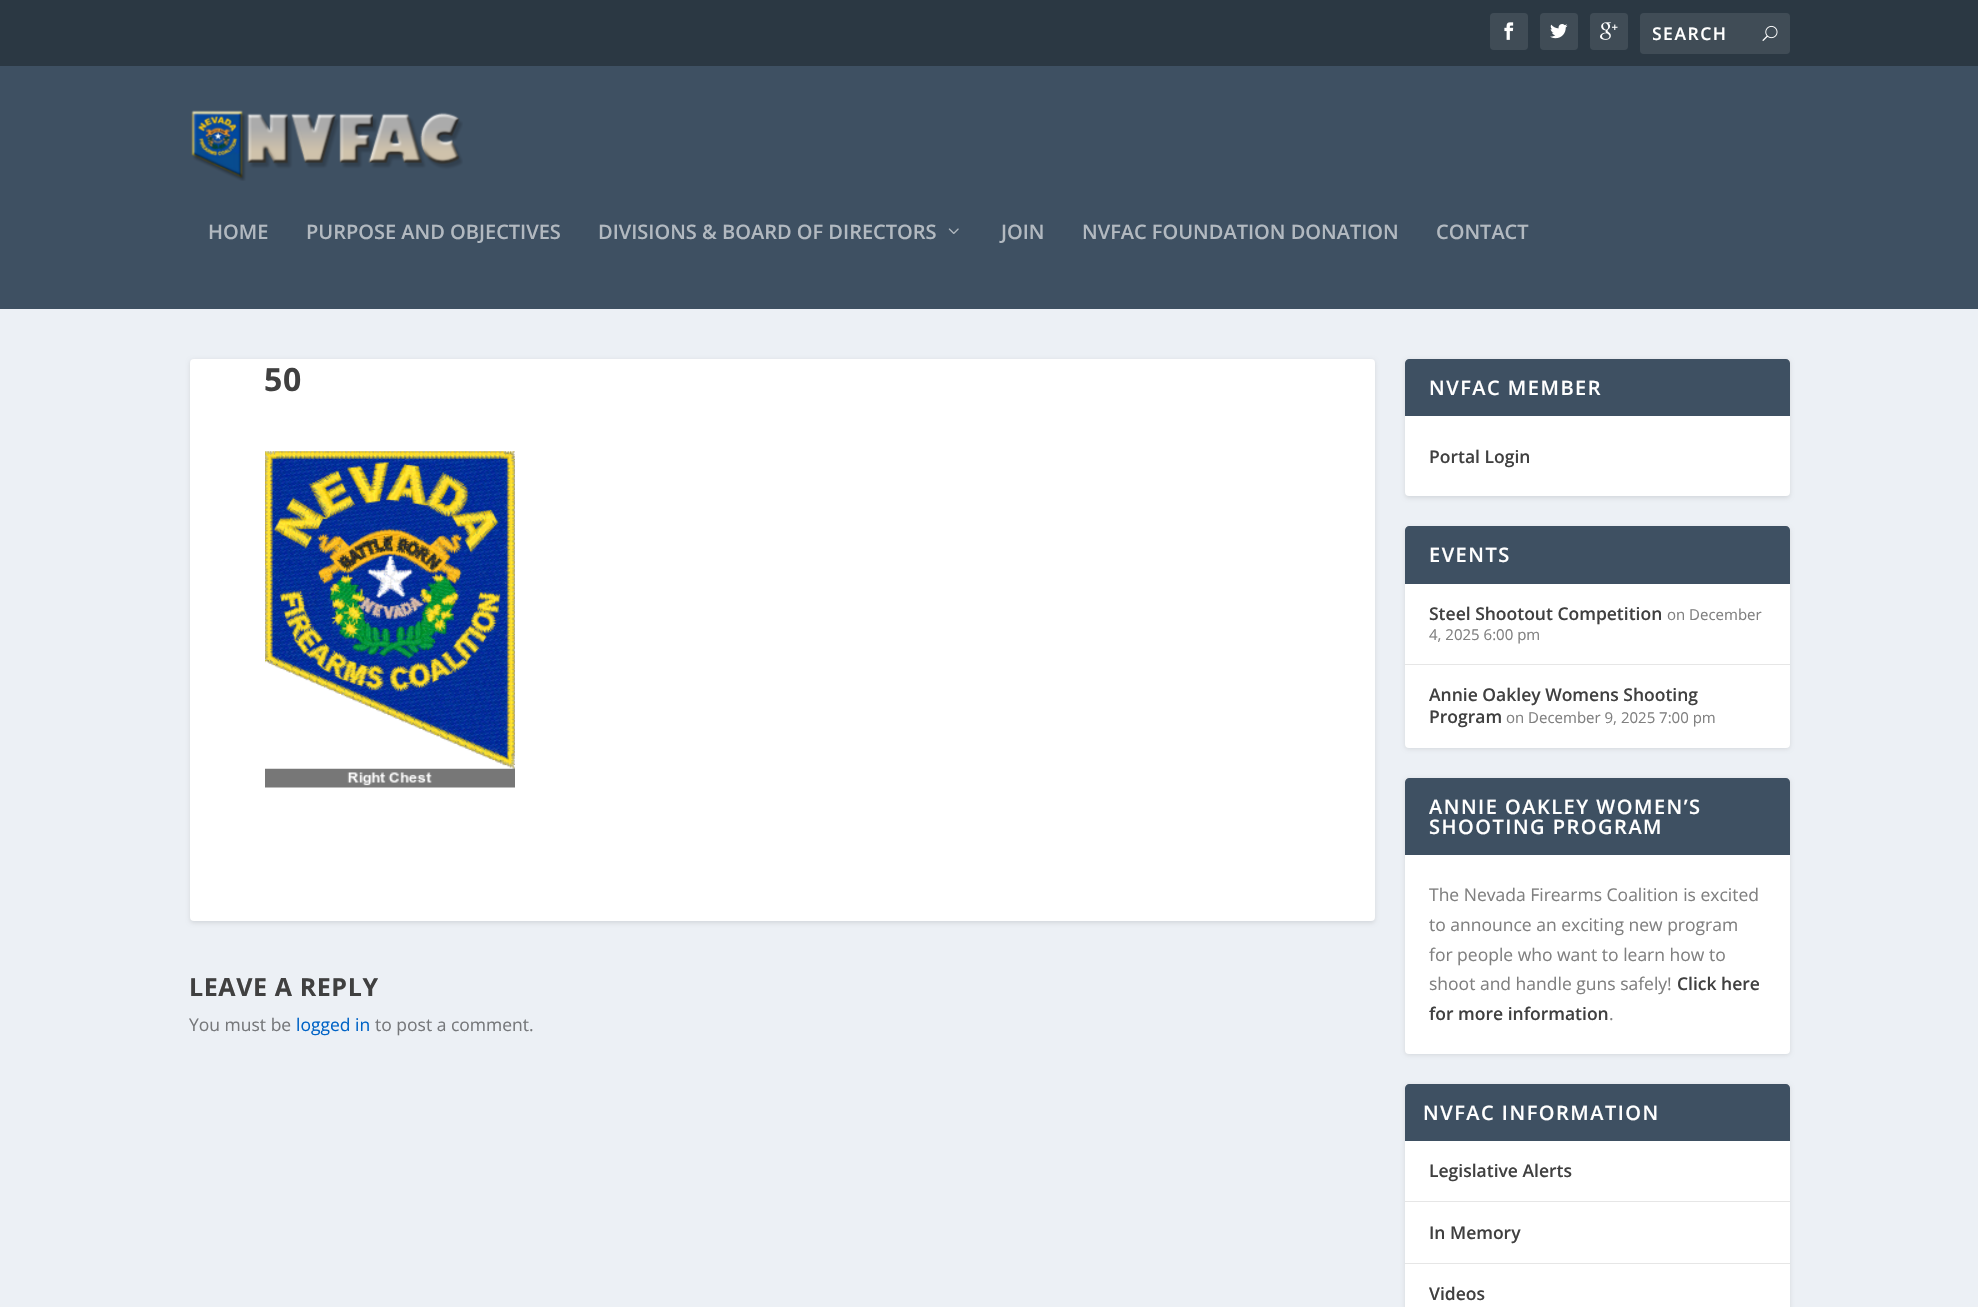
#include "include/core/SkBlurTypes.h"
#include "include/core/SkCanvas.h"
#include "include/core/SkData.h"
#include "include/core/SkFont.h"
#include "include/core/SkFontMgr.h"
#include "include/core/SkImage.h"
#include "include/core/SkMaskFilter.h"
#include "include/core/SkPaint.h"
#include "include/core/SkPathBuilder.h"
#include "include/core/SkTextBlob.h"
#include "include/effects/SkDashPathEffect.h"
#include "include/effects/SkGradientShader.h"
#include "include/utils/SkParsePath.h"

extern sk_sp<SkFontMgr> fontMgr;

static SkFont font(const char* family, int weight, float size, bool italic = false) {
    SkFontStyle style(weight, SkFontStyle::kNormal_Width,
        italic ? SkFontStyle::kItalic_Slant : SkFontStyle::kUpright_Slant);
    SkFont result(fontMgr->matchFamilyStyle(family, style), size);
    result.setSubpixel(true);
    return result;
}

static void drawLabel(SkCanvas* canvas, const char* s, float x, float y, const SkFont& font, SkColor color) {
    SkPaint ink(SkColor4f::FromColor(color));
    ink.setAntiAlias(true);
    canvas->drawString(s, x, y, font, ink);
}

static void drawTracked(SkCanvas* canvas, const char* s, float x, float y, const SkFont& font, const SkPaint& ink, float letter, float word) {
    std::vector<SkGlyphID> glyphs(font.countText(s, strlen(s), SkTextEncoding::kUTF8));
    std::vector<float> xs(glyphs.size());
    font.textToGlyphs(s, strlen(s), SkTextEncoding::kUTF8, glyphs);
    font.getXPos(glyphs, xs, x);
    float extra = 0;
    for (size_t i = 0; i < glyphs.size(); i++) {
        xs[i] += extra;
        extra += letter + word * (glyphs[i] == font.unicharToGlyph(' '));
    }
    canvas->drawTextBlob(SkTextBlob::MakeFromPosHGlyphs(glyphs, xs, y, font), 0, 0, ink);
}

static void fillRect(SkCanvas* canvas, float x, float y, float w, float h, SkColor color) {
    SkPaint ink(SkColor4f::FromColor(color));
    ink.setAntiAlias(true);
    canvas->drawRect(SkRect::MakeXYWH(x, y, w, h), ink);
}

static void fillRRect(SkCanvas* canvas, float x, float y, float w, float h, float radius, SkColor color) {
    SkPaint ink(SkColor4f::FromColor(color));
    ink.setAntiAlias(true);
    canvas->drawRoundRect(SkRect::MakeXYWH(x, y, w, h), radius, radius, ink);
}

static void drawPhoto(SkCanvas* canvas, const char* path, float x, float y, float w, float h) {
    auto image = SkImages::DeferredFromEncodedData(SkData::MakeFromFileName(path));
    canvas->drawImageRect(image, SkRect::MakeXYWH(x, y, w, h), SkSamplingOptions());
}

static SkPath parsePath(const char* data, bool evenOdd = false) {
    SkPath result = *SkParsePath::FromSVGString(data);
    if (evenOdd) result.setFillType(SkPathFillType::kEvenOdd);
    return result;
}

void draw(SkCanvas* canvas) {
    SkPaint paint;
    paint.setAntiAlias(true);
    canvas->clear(0xFFECF0F5);
    fillRect(canvas, 0, 0, 1978, 66, 0xFF2B3843);
    fillRRect(canvas, 1490, 13, 38, 37, 4, 0xFF404C56);
    drawPhoto(canvas, "assets/img1.png", 1504, 22, 10, 18);
    fillRRect(canvas, 1540, 13, 38, 37, 4, 0xFF404C56);
    drawPhoto(canvas, "assets/img2.png", 1550, 24, 18, 15);
    fillRRect(canvas, 1590, 13, 38, 37, 4, 0xFF404C56);
    drawPhoto(canvas, "assets/img3.png", 1600, 22, 18, 18);
    fillRRect(canvas, 1640, 13, 150, 41, 4, 0xFF404C56);
    canvas->save();
    canvas->clipRect(SkRect::MakeXYWH(1653, 21, 125, 24));
    SkFont font1 = font("Open Sans", 600, 17.5f);
    paint.setColor(0xFFFFFFFF);
    drawTracked(canvas, "SEARCH", 1652, 40, font1, paint, 1.5f, 0);
    canvas->restore();
    drawPhoto(canvas, "assets/img4.png", 1762, 25, 16, 16);
    fillRect(canvas, 0, 66, 1978, 243, 0xFF3E5062);
    drawPhoto(canvas, "assets/img5.png", 191, 110, 272, 71);
    SkFont font2 = font("Open Sans", 600, 20);
    drawLabel(canvas, "HOME", 208, 239, font2, 0xFFB2B9C0);
    drawLabel(canvas, "PURPOSE AND OBJECTIVES", 306, 239, font2, 0xFFB2B9C0);
    drawLabel(canvas, "DIVISIONS & BOARD OF DIRECTORS", 598, 239, font2, 0xFFB2B9C0);
    drawPhoto(canvas, "assets/img6.png", 948, 228, 11, 6);
    drawLabel(canvas, "JOIN", 1001, 239, font2, 0xFFB2B9C0);
    drawLabel(canvas, "NVFAC FOUNDATION DONATION", 1082, 239, font2, 0xFFB2B9C0);
    drawLabel(canvas, "CONTACT", 1436, 239, font2, 0xFFB2B9C0);
    paint.setColor(0x1A000000);
    paint.setMaskFilter(SkMaskFilter::MakeBlur(kNormal_SkBlurStyle, 2));
    canvas->drawRoundRect(SkRect::MakeXYWH(190, 360, 1185, 563), 4, 4, paint);
    paint.setMaskFilter(nullptr);
    fillRRect(canvas, 190, 359, 1185, 562, 4, 0xFFFFFFFF);
    SkFont font3 = font("Open Sans", 700, 32);
    paint.setColor(0xFF404040);
    drawTracked(canvas, "50", 264, 391, font3, paint, 0.6f, 0);
    drawPhoto(canvas, "assets/img7.png", 265, 451, 250, 337);
    SkFont font4 = font("Open Sans", 700, 25);
    drawTracked(canvas, "LEAVE A REPLY", 189, 996, font4, paint, 0.6f, 0);
    SkFont font5 = font("Open Sans", 400, 17.5f);
    drawLabel(canvas, "You must be", 189, 1031, font5, 0xFF76787B);
    drawLabel(canvas, "logged in", 296, 1031, font5, 0xFF0063C6);
    drawLabel(canvas, "to post a comment.", 375, 1031, font5, 0xFF76787B);
    paint.setColor(0x1A000000);
    paint.setMaskFilter(SkMaskFilter::MakeBlur(kNormal_SkBlurStyle, 2));
    canvas->drawRoundRect(SkRect::MakeXYWH(1405, 360, 385, 138), 4, 4, paint);
    paint.setMaskFilter(nullptr);
    fillRRect(canvas, 1405, 359, 385, 137, 4, 0xFFFFFFFF);
    paint.setColor(0xFF3E5062);
    canvas->drawPath(parsePath("M1409 359H1786C1788 359 1790 361 1790 363V416H1405V363C1405 361 1407 359 1409 359Z"), paint);
    paint.setColor(0xFFFFFFFF);
    drawTracked(canvas, "NVFAC MEMBER", 1429, 395, font2, paint, 1.5f, 0);
    drawLabel(canvas, "Portal Login", 1429, 463, font1, 0xFF404040);
    paint.setColor(0x1A000000);
    paint.setMaskFilter(SkMaskFilter::MakeBlur(kNormal_SkBlurStyle, 2));
    canvas->drawRoundRect(SkRect::MakeXYWH(1405, 528, 385, 221), 4, 4, paint);
    paint.setMaskFilter(nullptr);
    fillRRect(canvas, 1405, 526, 385, 222, 4, 0xFFFFFFFF);
    paint.setColor(0xFF3E5062);
    canvas->drawPath(parsePath("M1409 526H1786C1788 526 1790 528 1790 530V584H1405V530C1405 528 1407 526 1409 526Z"), paint);
    paint.setColor(0xFFFFFFFF);
    drawTracked(canvas, "EVENTS", 1429, 562, font2, paint, 1.5f, 0);
    fillRect(canvas, 1405, 664, 385, 1, 0xFFE6E6E6);
    drawLabel(canvas, "Steel Shootout Competition", 1429, 620, font1, 0xFF404040);
    SkFont font6 = font("Open Sans", 400, 15);
    drawLabel(canvas, "on December", 1667, 620, font6, 0xFF808080);
    drawLabel(canvas, "4, 2025 6:00 pm", 1429, 640, font6, 0xFF808080);
    drawLabel(canvas, "Annie Oakley Womens Shooting", 1429, 701, font1, 0xFF404040);
    drawLabel(canvas, "Program", 1429, 723, font1, 0xFF404040);
    drawLabel(canvas, "on December 9, 2025 7:00 pm", 1506, 723, font6, 0xFF808080);
    paint.setColor(0x1A000000);
    paint.setMaskFilter(SkMaskFilter::MakeBlur(kNormal_SkBlurStyle, 2));
    canvas->drawRoundRect(SkRect::MakeXYWH(1405, 779, 385, 276), 4, 4, paint);
    paint.setMaskFilter(nullptr);
    fillRRect(canvas, 1405, 778, 385, 276, 4, 0xFFFFFFFF);
    paint.setColor(0xFF3E5062);
    canvas->drawPath(parsePath("M1409 778H1786C1788 778 1790 780 1790 782V855H1405V782C1405 780 1407 778 1409 778Z"), paint);
    paint.setColor(0xFFFFFFFF);
    drawTracked(canvas, "ANNIE OAKLEY WOMEN’S", 1429, 814, font2, paint, 1.5f, 0);
    drawTracked(canvas, "SHOOTING PROGRAM", 1429, 834, font2, paint, 1.5f, 0);
    drawLabel(canvas, "The Nevada Firearms Coalition is excited", 1429, 901, font5, 0xFF808080);
    drawLabel(canvas, "to announce an exciting new program", 1429, 931, font5, 0xFF808080);
    drawLabel(canvas, "for people who want to learn how to", 1429, 961, font5, 0xFF808080);
    drawLabel(canvas, "shoot and handle guns safely!", 1429, 990, font5, 0xFF808080);
    drawLabel(canvas, "Click here", 1677, 990, font1, 0xFF404040);
    drawLabel(canvas, "for more information", 1429, 1020, font1, 0xFF404040);
    drawLabel(canvas, ".", 1609, 1020, font5, 0xFF808080);
    paint.setColor(0x1A000000);
    paint.setMaskFilter(SkMaskFilter::MakeBlur(kNormal_SkBlurStyle, 2));
    canvas->drawRoundRect(SkRect::MakeXYWH(1405, 1085, 385, 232), 4, 4, paint);
    paint.setMaskFilter(nullptr);
    fillRRect(canvas, 1405, 1084, 385, 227, 4, 0xFFFFFFFF);
    paint.setColor(0xFF3E5062);
    canvas->drawPath(parsePath("M1409 1084H1786C1788 1084 1790 1086 1790 1088V1141H1405V1088C1405 1086 1407 1084 1409 1084Z"), paint);
    paint.setColor(0xFFFFFFFF);
    drawTracked(canvas, "NVFAC INFORMATION", 1423, 1120, font2, paint, 1.5f, 0);
    fillRect(canvas, 1405, 1201, 385, 1, 0xFFE6E6E6);
    drawLabel(canvas, "Legislative Alerts", 1429, 1177, font1, 0xFF404040);
    fillRect(canvas, 1405, 1263, 385, 1, 0xFFE6E6E6);
    drawLabel(canvas, "In Memory", 1429, 1239, font1, 0xFF404040);
    drawLabel(canvas, "Videos", 1429, 1300, font1, 0xFF404040);
}
